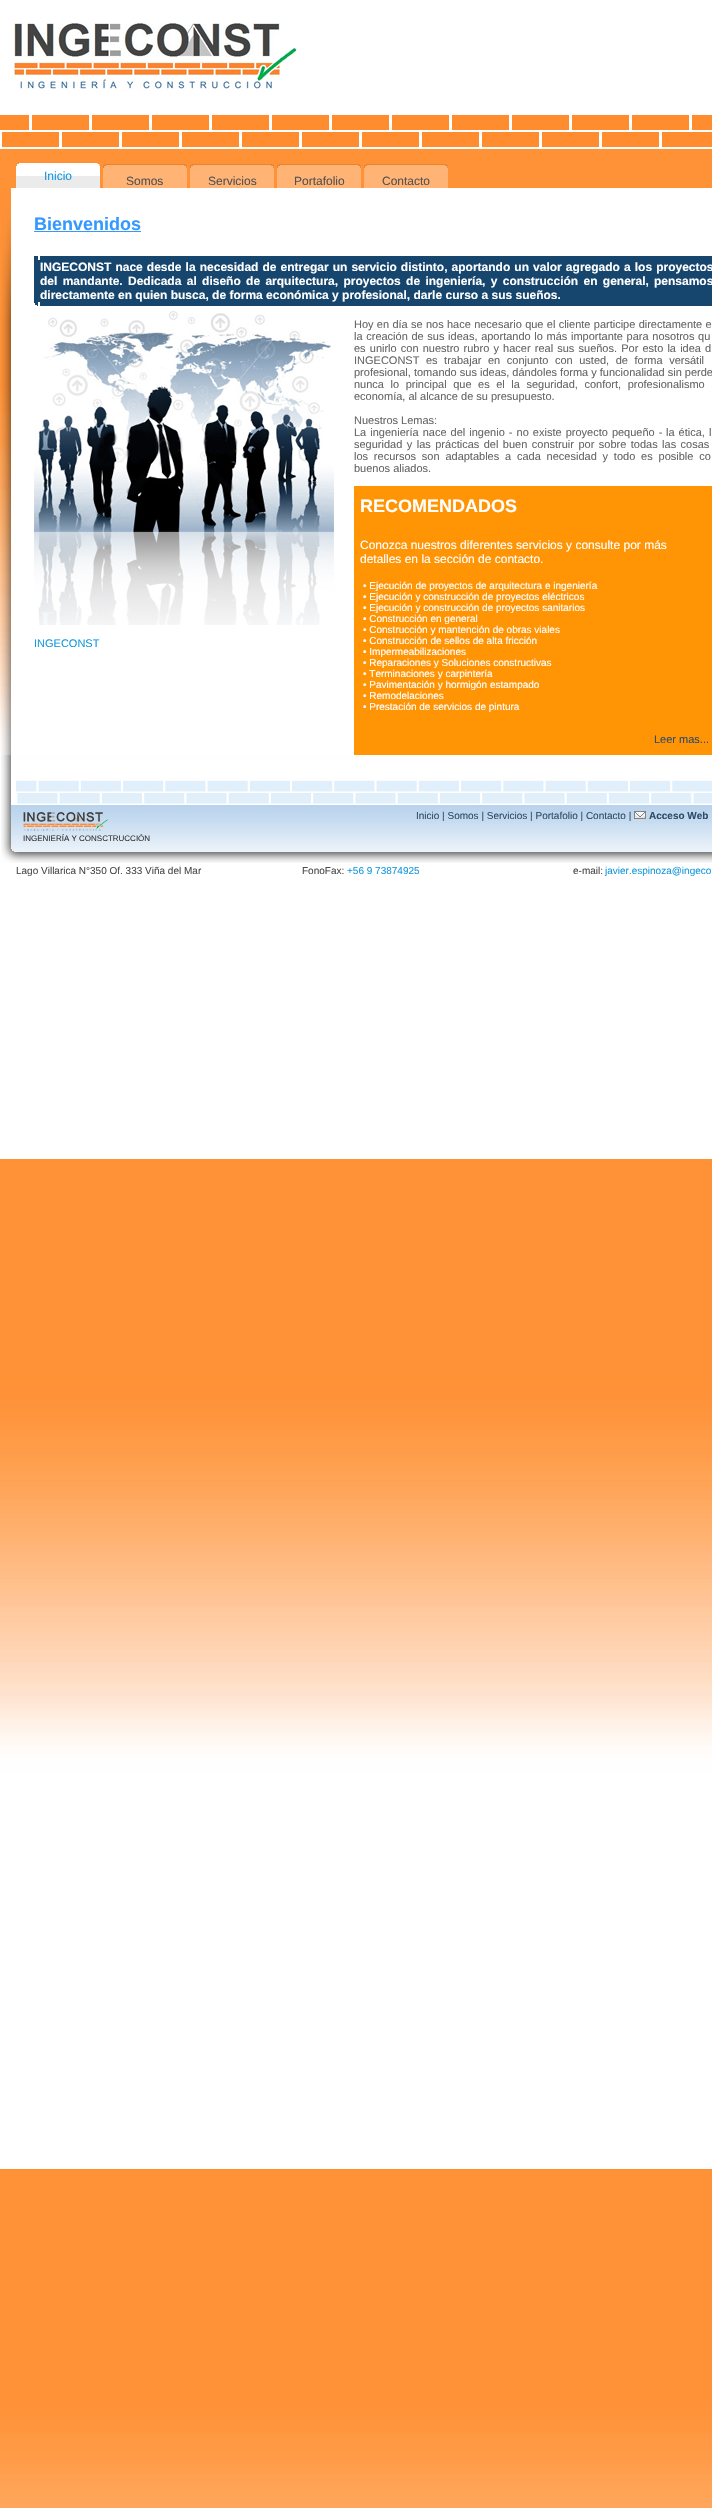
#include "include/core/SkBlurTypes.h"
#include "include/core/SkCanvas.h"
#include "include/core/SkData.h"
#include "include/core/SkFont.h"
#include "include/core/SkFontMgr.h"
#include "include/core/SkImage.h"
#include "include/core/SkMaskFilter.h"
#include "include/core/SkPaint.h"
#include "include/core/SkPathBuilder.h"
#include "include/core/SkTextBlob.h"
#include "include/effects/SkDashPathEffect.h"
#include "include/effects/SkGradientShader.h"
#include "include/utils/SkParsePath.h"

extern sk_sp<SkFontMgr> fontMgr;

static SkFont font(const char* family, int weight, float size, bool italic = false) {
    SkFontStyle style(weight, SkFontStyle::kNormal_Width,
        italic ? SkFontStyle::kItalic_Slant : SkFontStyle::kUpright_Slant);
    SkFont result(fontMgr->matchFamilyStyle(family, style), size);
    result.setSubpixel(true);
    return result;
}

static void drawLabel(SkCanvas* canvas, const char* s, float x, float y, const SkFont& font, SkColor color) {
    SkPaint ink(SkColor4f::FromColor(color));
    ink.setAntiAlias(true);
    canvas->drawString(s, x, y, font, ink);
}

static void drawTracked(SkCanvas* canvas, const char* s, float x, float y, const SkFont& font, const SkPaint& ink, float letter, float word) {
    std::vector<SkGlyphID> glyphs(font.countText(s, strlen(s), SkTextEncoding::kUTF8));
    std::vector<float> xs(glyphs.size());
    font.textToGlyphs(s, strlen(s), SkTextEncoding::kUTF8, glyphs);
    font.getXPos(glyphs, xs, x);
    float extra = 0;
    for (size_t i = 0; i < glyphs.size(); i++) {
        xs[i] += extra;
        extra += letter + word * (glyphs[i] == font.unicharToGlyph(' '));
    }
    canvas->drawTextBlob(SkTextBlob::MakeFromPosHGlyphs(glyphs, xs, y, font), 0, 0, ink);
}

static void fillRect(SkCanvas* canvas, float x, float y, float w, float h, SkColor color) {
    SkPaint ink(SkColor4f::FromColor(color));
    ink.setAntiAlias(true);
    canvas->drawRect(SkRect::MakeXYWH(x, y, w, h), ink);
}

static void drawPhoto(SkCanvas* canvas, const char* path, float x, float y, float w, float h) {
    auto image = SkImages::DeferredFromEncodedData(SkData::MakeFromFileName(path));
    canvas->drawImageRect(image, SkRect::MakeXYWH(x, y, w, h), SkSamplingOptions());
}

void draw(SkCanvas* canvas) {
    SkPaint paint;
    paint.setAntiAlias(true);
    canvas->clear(0xFFFFFFFF);
    drawPhoto(canvas, "assets/img1.png", 0, 149, 712, 2359);
    drawPhoto(canvas, "assets/img2.png", 11, 22, 286, 69);
    drawPhoto(canvas, "assets/img3.png", 0, 115, 712, 32);
    fillRect(canvas, 16, 188, 696, 566, 0xFFFFFFFF);
    drawPhoto(canvas, "assets/img4.png", 16, 163, 84, 25);
    SkFont font1 = font("Liberation Sans", 400, 12);
    drawLabel(canvas, "Inicio", 44, 180, font1, 0xFF1699DD);
    drawPhoto(canvas, "assets/img5.png", 103, 163, 84, 25);
    drawLabel(canvas, "Somos", 126, 185, font1, 0xFF535353);
    drawPhoto(canvas, "assets/img6.png", 190, 163, 84, 25);
    drawLabel(canvas, "Servicios", 208, 185, font1, 0xFF535353);
    drawPhoto(canvas, "assets/img6.png", 277, 163, 84, 25);
    drawLabel(canvas, "Portafolio", 294, 185, font1, 0xFF535353);
    drawPhoto(canvas, "assets/img6.png", 364, 163, 84, 25);
    drawLabel(canvas, "Contacto", 382, 185, font1, 0xFF535353);
    fillRect(canvas, 11, 188, 5, 5, 0xFFFFFFFE);
    drawPhoto(canvas, "assets/img7.png", 1, 193, 15, 129);
    drawPhoto(canvas, "assets/img8.png", 1, 322, 15, 433);
    SkFont font2 = font("Liberation Sans", 700, 18);
    drawLabel(canvas, "Bienvenidos", 34, 230, font2, 0xFF3399FF);
    fillRect(canvas, 34, 231, 107, 1, 0xFF3399FF);
    fillRect(canvas, 34, 256, 4, 4, 0xFF16456E);
    fillRect(canvas, 40, 256, 672, 4, 0xFF16456E);
    fillRect(canvas, 34, 260, 678, 42, 0xFF16456E);
    SkFont font3 = font("Liberation Sans", 700, 12);
    paint.setColor(0xFFFFFFFF);
    drawTracked(canvas, "INGECONST nace desde la necesidad de entregar un servicio distinto, aportando un valor agregado a los proyectos", 40, 271, font3, paint, 0, 0.75f);
    drawTracked(canvas, "del mandante. Dedicada al diseño de arquitectura, proyectos de ingeniería, y construcción en general,", 40, 285, font3, paint, 0, 2);
    drawLabel(canvas, "pensamos", 654, 285, font3, 0xFFFFFFFF);
    drawLabel(canvas, "directamente en quien busca, de forma económica y profesional, darle curso a sus sueños.", 40, 299, font3, 0xFFFFFFFF);
    drawPhoto(canvas, "assets/img9.png", 34, 302, 4, 4);
    fillRect(canvas, 40, 302, 672, 4, 0xFF16456E);
    drawPhoto(canvas, "assets/img10.png", 34, 311, 300, 314);
    SkFont font4 = font("Liberation Sans", 400, 11);
    drawLabel(canvas, "INGECONST", 34, 647, font4, 0xFF1699DD);
    paint.setColor(0xFF666666);
    drawTracked(canvas, "Hoy en día se nos hace necesario que el cliente participe directamente e", 354, 328, font4, paint, 0, 0.25f);
    drawTracked(canvas, "la creación de sus ideas, aportando lo más importante para nosotros qu", 354, 340, font4, paint, 0, 0.6f);
    drawTracked(canvas, "es unirlo con nuestro rubro y hacer real sus sueños. Por esto la idea d", 354, 352, font4, paint, 0, 1.1f);
    drawTracked(canvas, "INGECONST es trabajar en conjunto con usted, de forma versátil", 354, 364, font4, paint, 0, 3.5f);
    drawLabel(canvas, "profesional, tomando sus ideas, dándoles forma y funcionalidad sin perde", 354, 376, font4, 0xFF666666);
    drawTracked(canvas, "nunca lo principal que es el la seguridad, confort, profesionalismo", 354, 388, font4, paint, 0, 3.5f);
    drawLabel(canvas, "economía, al alcance de su presupuesto.", 354, 400, font4, 0xFF666666);
    drawLabel(canvas, "Nuestros Lemas:", 354, 424, font4, 0xFF666666);
    drawTracked(canvas, "La ingeniería nace del ingenio - no existe proyecto pequeño -", 354, 436, font4, paint, 0, 1);
    drawTracked(canvas, "la ética, l", 666, 436, font4, paint, 0, 1);
    drawTracked(canvas, "seguridad y las prácticas del buen construir por sobre todas las cosas", 354, 448, font4, paint, 0, 1.4f);
    drawTracked(canvas, "los recursos son adaptables a cada necesidad y todo es posible co", 354, 460, font4, paint, 0, 2.75f);
    drawLabel(canvas, "buenos aliados.", 354, 472, font4, 0xFF666666);
    fillRect(canvas, 354, 486, 358, 269, 0xFFFF9405);
    drawLabel(canvas, "RECOMENDADOS", 360, 512, font2, 0xFFFFFFFF);
    drawLabel(canvas, "Conozca nuestros diferentes servicios y consulte por más", 360, 549, font1, 0xFFFFFFFF);
    drawLabel(canvas, "detalles en la sección de contacto.", 360, 563, font1, 0xFFFFFFFF);
    SkFont font5 = font("Liberation Sans", 400, 10);
    drawLabel(canvas, "• Ejecución de proyectos de arquitectura e ingeniería", 363, 589, font5, 0xFFFFFFFF);
    drawLabel(canvas, "• Ejecución y construcción de proyectos eléctricos", 363, 600, font5, 0xFFFFFFFF);
    drawLabel(canvas, "• Ejecución y construcción de proyectos sanitarios", 363, 611, font5, 0xFFFFFFFF);
    drawLabel(canvas, "• Construcción en general", 363, 622, font5, 0xFFFFFFFF);
    drawLabel(canvas, "• Construcción y mantención de obras viales", 363, 633, font5, 0xFFFFFFFF);
    drawLabel(canvas, "• Construcción de sellos de alta fricción", 363, 644, font5, 0xFFFFFFFF);
    drawLabel(canvas, "• Impermeabilizaciones", 363, 655, font5, 0xFFFFFFFF);
    drawLabel(canvas, "• Reparaciones y Soluciones constructivas", 363, 666, font5, 0xFFFFFFFF);
    drawLabel(canvas, "• Terminaciones y carpintería", 363, 677, font5, 0xFFFFFFFF);
    drawLabel(canvas, "• Pavimentación y hormigón estampado", 363, 688, font5, 0xFFFFFFFF);
    drawLabel(canvas, "• Remodelaciones", 363, 699, font5, 0xFFFFFFFF);
    drawLabel(canvas, "• Prestación de servicios de pintura", 363, 710, font5, 0xFFFFFFFF);
    drawLabel(canvas, "Leer mas...", 654, 743, font4, 0xFF2E4B69);
    drawPhoto(canvas, "assets/img11.png", 1, 755, 15, 94);
    drawPhoto(canvas, "assets/img12.png", 16, 780, 696, 24);
    drawPhoto(canvas, "assets/img13.png", 16, 805, 696, 44);
    drawPhoto(canvas, "assets/img14.png", 23, 812, 85, 19);
    drawLabel(canvas, "Inicio | Somos | Servicios | Portafolio | Contacto |", 416, 819, font5, 0xFF2E4B69);
    drawPhoto(canvas, "assets/img15.png", 634, 811, 12, 8);
    SkFont font6 = font("Liberation Sans", 700, 10);
    drawLabel(canvas, "Acceso Web", 649, 819, font6, 0xFF2E4B69);
    SkFont font7 = font("Liberation Sans", 400, 8);
    drawLabel(canvas, "INGENIERÍA Y CONSCTRUCCIÓN", 23, 841, font7, 0xFF333333);
    drawPhoto(canvas, "assets/img16.png", 1, 849, 711, 14);
    drawLabel(canvas, "Lago Villarica N°350 Of. 333 Viña del Mar", 16, 874, font5, 0xFF4B4B4B);
    drawLabel(canvas, "FonoFax:", 302, 874, font5, 0xFF4B4B4B);
    drawLabel(canvas, "+56 9 73874925", 347, 874, font5, 0xFF1699DD);
    drawLabel(canvas, "e-mail:", 573, 874, font5, 0xFF4B4B4B);
    drawLabel(canvas, "javier.espinoza@ingeco", 605, 874, font5, 0xFF1699DD);
}
